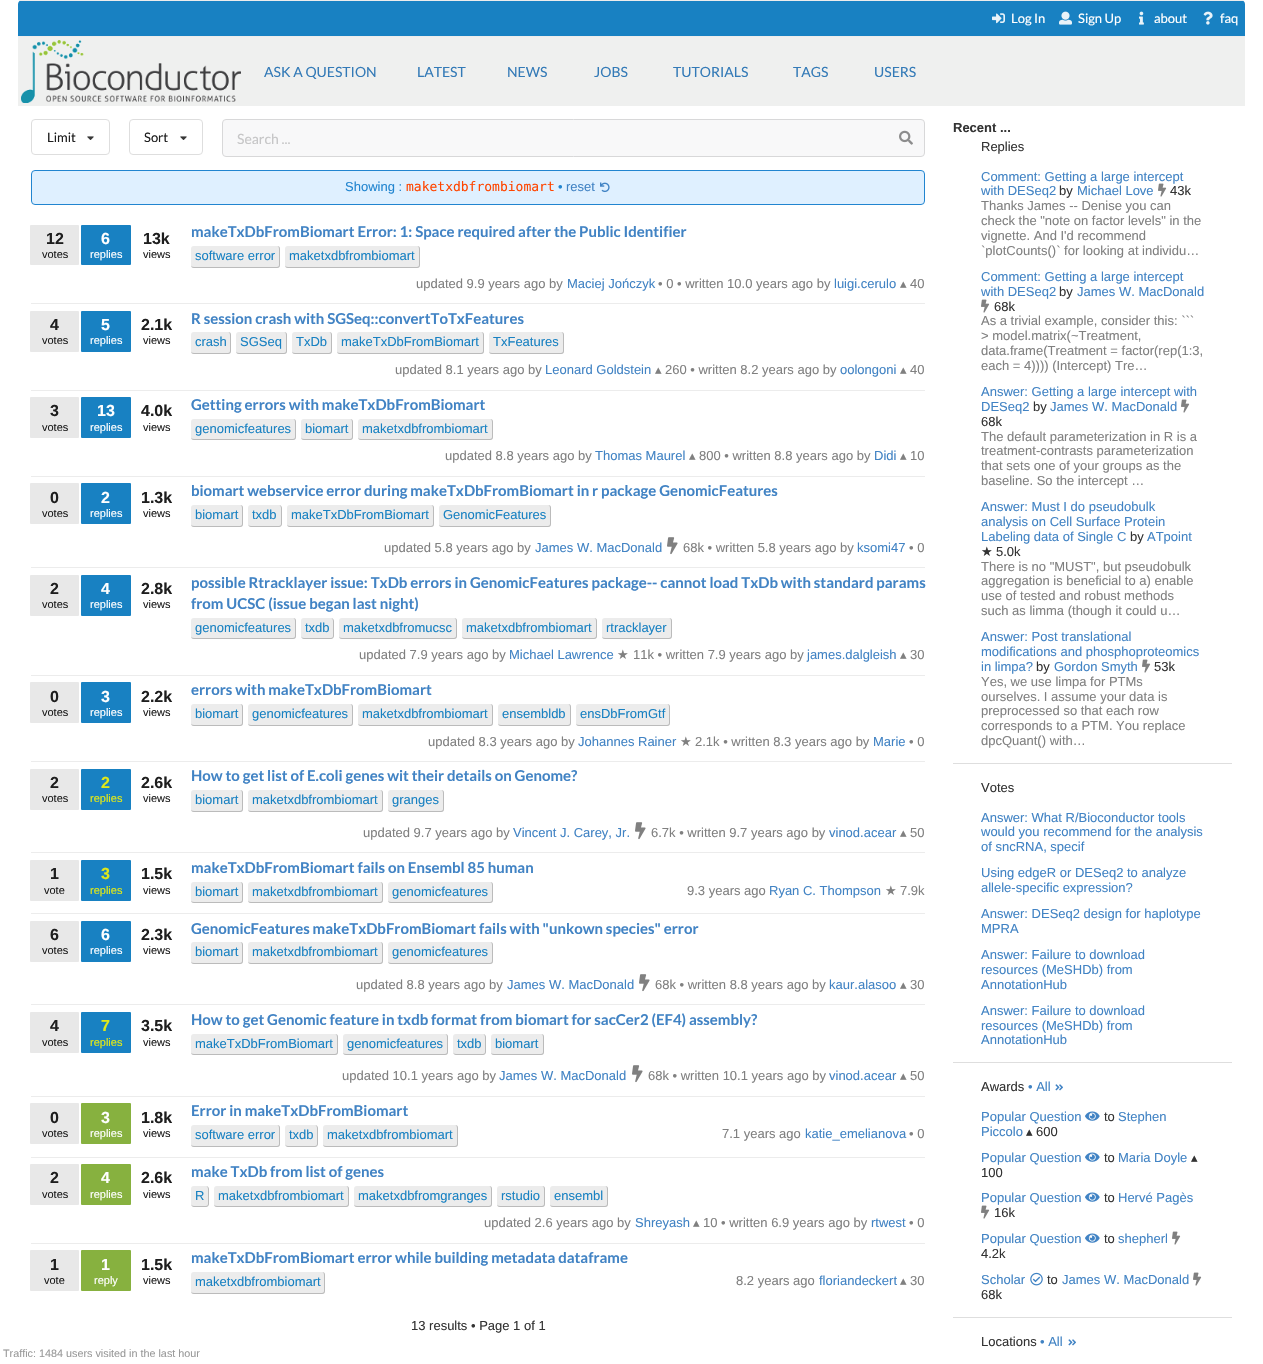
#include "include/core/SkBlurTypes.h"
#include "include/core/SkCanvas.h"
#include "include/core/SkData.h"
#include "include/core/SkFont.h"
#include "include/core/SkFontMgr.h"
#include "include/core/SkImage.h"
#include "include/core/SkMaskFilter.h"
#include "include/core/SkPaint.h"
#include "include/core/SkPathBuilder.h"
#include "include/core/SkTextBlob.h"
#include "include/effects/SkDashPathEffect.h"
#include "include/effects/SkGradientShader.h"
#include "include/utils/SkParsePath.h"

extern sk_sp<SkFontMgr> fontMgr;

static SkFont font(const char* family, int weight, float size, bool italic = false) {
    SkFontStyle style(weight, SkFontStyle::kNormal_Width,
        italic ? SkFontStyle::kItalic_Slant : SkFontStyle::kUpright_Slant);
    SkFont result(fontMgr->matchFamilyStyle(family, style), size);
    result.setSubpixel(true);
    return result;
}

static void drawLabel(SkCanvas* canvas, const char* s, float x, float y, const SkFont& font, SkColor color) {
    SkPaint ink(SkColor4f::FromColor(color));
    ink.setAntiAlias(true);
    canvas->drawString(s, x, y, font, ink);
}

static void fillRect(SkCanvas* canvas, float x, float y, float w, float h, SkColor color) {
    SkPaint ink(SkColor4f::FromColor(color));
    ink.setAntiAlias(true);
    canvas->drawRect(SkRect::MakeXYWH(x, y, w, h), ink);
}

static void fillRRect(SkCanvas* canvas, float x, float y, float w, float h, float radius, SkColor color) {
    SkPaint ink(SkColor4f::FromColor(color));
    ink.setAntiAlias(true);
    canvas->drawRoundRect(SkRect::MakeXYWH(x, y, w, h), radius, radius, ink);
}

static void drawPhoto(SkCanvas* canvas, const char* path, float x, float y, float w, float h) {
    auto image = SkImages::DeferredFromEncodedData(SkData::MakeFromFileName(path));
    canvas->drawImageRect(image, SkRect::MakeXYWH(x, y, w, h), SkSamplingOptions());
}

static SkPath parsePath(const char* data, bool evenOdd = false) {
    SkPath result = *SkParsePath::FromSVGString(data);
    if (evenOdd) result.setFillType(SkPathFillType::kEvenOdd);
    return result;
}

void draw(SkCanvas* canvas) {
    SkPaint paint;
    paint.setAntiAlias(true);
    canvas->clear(0xFFFFFFFF);
    paint.setColor(0xFF1881C2);
    canvas->drawPath(parsePath("M22 0H1241C1243 0 1245 2 1245 4V37H18V4C18 2 20 0 22 0Z"), paint);
    fillRect(canvas, 20, 0, 1223, 1, 0xFFECECEC);
    fillRect(canvas, 18, 36, 1227, 1, 0xFFECECEC);
    drawPhoto(canvas, "assets/img1.png", 992, 13, 13, 11);
    SkFont font1 = font("Lato", 400, 13);
    drawLabel(canvas, "Log In", 1011, 23, font1, 0xFFFFFFFF);
    drawPhoto(canvas, "assets/img2.png", 1059, 11, 13, 14);
    drawLabel(canvas, "Sign Up", 1078, 23, font1, 0xFFFFFFFF);
    drawPhoto(canvas, "assets/img3.png", 1139, 11, 5, 14);
    drawLabel(canvas, "about", 1154, 23, font1, 0xFFFFFFFF);
    drawPhoto(canvas, "assets/img4.png", 1203, 11, 10, 14);
    drawLabel(canvas, "faq", 1220, 23, font1, 0xFFFFFFFF);
    fillRect(canvas, 18, 37, 1227, 69, 0xFFEFF0EF);
    drawPhoto(canvas, "assets/img5.png", 21, 40, 220, 63);
    SkFont font2 = font("Lato", 400, 14);
    drawLabel(canvas, "ASK A QUESTION", 264, 77, font2, 0xFF337AB7);
    drawLabel(canvas, "LATEST", 417, 77, font2, 0xFF337AB7);
    drawLabel(canvas, "NEWS", 507, 77, font2, 0xFF337AB7);
    drawLabel(canvas, "JOBS", 594, 77, font2, 0xFF337AB7);
    drawLabel(canvas, "TUTORIALS", 673, 77, font2, 0xFF337AB7);
    drawLabel(canvas, "TAGS", 793, 77, font2, 0xFF337AB7);
    drawLabel(canvas, "USERS", 874, 77, font2, 0xFF337AB7);
    paint.setStroke(true);
    paint.setStrokeWidth(1);
    paint.setColor(0xFFDEDEDE);
    canvas->drawRoundRect(SkRect::MakeXYWH(31.5f, 119.5f, 78, 35), 3.5f, 3.5f, paint);
    drawLabel(canvas, "Limit", 47, 142, font1, 0xFF1E1E1E);
    drawPhoto(canvas, "assets/img6.png", 87, 136, 7, 4);
    canvas->drawRoundRect(SkRect::MakeXYWH(129.5f, 119.5f, 73, 35), 3.5f, 3.5f, paint);
    drawLabel(canvas, "Sort", 144, 142, font1, 0xFF1E1E1E);
    drawPhoto(canvas, "assets/img6.png", 180, 136, 7, 4);
    paint.setStroke(false);
    paint.setColor(0xFFF8F8F9);
    canvas->drawRoundRect(SkRect::MakeXYWH(222.5f, 119.5f, 702, 37), 3.5f, 3.5f, paint);
    paint.setStroke(true);
    paint.setColor(0xFFD8D8D9);
    canvas->drawRoundRect(SkRect::MakeXYWH(222.5f, 119.5f, 702, 37), 3.5f, 3.5f, paint);
    drawLabel(canvas, "Search ...", 237, 144, font2, 0xFFC6C6C7);
    drawPhoto(canvas, "assets/img7.png", 899, 130, 14, 15);
    paint.setStroke(false);
    paint.setColor(0xFFDFF0FF);
    canvas->drawRoundRect(SkRect::MakeXYWH(31.5f, 170.5f, 893, 34), 3.5f, 3.5f, paint);
    paint.setStroke(true);
    paint.setColor(0xFF2185D0);
    canvas->drawRoundRect(SkRect::MakeXYWH(31.5f, 170.5f, 893, 34), 3.5f, 3.5f, paint);
    SkFont font3 = font("Liberation Sans", 400, 13);
    drawLabel(canvas, "Showing :", 345, 191, font3, 0xFF2185D0);
    SkFont font4 = font("DejaVu Sans Mono", 400, 13);
    drawLabel(canvas, "maketxdbfrombiomart", 406, 191, font4, 0xFFFF4500);
    drawLabel(canvas, "•", 558, 191, font3, 0xFF2185D0);
    drawLabel(canvas, "reset", 566, 191, font3, 0xFF4183C4);
    drawPhoto(canvas, "assets/img8.png", 600, 182, 10, 11);
    fillRRect(canvas, 30, 225, 49, 40, 1, 0xFFE8E8E8);
    SkFont font5 = font("Liberation Sans", 700, 16);
    drawLabel(canvas, "12", 46, 244, font5, 0xFF1E1E1E);
    SkFont font6 = font("Liberation Sans", 400, 11);
    drawLabel(canvas, "votes", 42, 258, font6, 0xFF1E1E1E);
    fillRRect(canvas, 81, 225, 50, 40, 1, 0xFF1881C2);
    drawLabel(canvas, "6", 101, 244, font5, 0xFFFFFFFF);
    drawLabel(canvas, "replies", 90, 258, font6, 0xFFFFFFFF);
    drawLabel(canvas, "13k", 143, 244, font5, 0xFF1E1E1E);
    drawLabel(canvas, "views", 143, 258, font6, 0xFF1E1E1E);
    SkFont font7 = font("Lato", 700, 14.95f);
    drawLabel(canvas, "makeTxDbFromBiomart Error: 1: Space required after the Public Identifier", 191, 237, font7, 0xFF4183C4);
    fillRRect(canvas, 191, 246, 89, 22, 3, 0xFFECECEC);
    paint.setStroke(false);
    paint.setColor(0xFFBBBBBB);
    canvas->drawPath(parsePath("M194 246H277C279 246 280 247 280 249V265C280 267 279 268 277 268H194C192 268 191 267 191 265V249C191 247 192 246 194 246ZM194 246H277C278 246 279 247 279 249V265C279 266 278 267 277 267H194C192 267 191 266 191 265V249C191 247 192 246 194 246Z", true), paint);
    drawLabel(canvas, "software error", 195, 260, font3, 0xFF1881C2);
    fillRRect(canvas, 285, 246, 135, 22, 3, 0xFFECECEC);
    canvas->drawPath(parsePath("M288 246H417C419 246 420 247 420 249V265C420 267 419 268 417 268H288C286 268 285 267 285 265V249C285 247 286 246 288 246ZM288 246H417C418 246 419 247 419 249V265C419 266 418 267 417 267H288C286 267 285 266 285 265V249C285 247 286 246 288 246Z", true), paint);
    drawLabel(canvas, "maketxdbfrombiomart", 289, 260, font3, 0xFF1881C2);
    drawLabel(canvas, "updated 9.9 years ago by", 416, 288, font3, 0xFF808080);
    drawLabel(canvas, "Maciej Jończyk", 567, 288, font3, 0xFF4183C4);
    drawLabel(canvas, "• 0 • written 10.0 years ago by", 658, 288, font3, 0xFF808080);
    drawLabel(canvas, "luigi.cerulo", 834, 288, font3, 0xFF4183C4);
    SkFont font8 = font("DejaVu Sans", 400, 13);
    drawLabel(canvas, "▴", 900, 288, font8, 0xFF808080);
    drawLabel(canvas, "40", 910, 288, font3, 0xFF808080);
    fillRect(canvas, 31, 303, 894, 1, 0xFFECECEC);
    fillRRect(canvas, 30, 311, 49, 41, 1, 0xFFE8E8E8);
    drawLabel(canvas, "4", 50, 330, font5, 0xFF1E1E1E);
    drawLabel(canvas, "votes", 42, 344, font6, 0xFF1E1E1E);
    fillRRect(canvas, 81, 311, 50, 41, 1, 0xFF1881C2);
    drawLabel(canvas, "5", 101, 330, font5, 0xFFFFFFFF);
    drawLabel(canvas, "replies", 90, 344, font6, 0xFFFFFFFF);
    drawLabel(canvas, "2.1k", 141, 330, font5, 0xFF1E1E1E);
    drawLabel(canvas, "views", 143, 344, font6, 0xFF1E1E1E);
    drawLabel(canvas, "R session crash with SGSeq::convertToTxFeatures", 191, 324, font7, 0xFF4183C4);
    fillRRect(canvas, 191, 332, 40, 22, 3, 0xFFECECEC);
    canvas->drawPath(parsePath("M194 332H228C230 332 231 333 231 335V351C231 353 230 354 228 354H194C192 354 191 353 191 351V335C191 333 192 332 194 332ZM194 332H228C229 332 230 333 230 335V351C230 352 229 353 228 353H194C192 353 191 352 191 351V335C191 333 192 332 194 332Z", true), paint);
    drawLabel(canvas, "crash", 195, 346, font3, 0xFF1881C2);
    fillRRect(canvas, 236, 332, 51, 22, 3, 0xFFECECEC);
    canvas->drawPath(parsePath("M239 332H284C286 332 287 333 287 335V351C287 353 286 354 284 354H239C237 354 236 353 236 351V335C236 333 237 332 239 332ZM239 332H284C285 332 286 333 286 335V351C286 352 285 353 284 353H239C237 353 236 352 236 351V335C236 333 237 332 239 332Z", true), paint);
    drawLabel(canvas, "SGSeq", 240, 346, font3, 0xFF1881C2);
    fillRRect(canvas, 292, 332, 40, 22, 3, 0xFFECECEC);
    canvas->drawPath(parsePath("M295 332H329C331 332 332 333 332 335V351C332 353 331 354 329 354H295C293 354 292 353 292 351V335C292 333 293 332 295 332ZM295 332H329C330 332 331 333 331 335V351C331 352 330 353 329 353H295C293 353 292 352 292 351V335C292 333 293 332 295 332Z", true), paint);
    drawLabel(canvas, "TxDb", 296, 346, font3, 0xFF1881C2);
    fillRRect(canvas, 337, 332, 147, 22, 3, 0xFFECECEC);
    canvas->drawPath(parsePath("M340 332H481C483 332 484 333 484 335V351C484 353 483 354 481 354H340C338 354 337 353 337 351V335C337 333 338 332 340 332ZM340 332H481C482 332 483 333 483 335V351C483 352 482 353 481 353H340C338 353 337 352 337 351V335C337 333 338 332 340 332Z", true), paint);
    drawLabel(canvas, "makeTxDbFromBiomart", 341, 346, font3, 0xFF1881C2);
    fillRRect(canvas, 489, 332, 75, 22, 3, 0xFFECECEC);
    canvas->drawPath(parsePath("M492 332H561C563 332 564 333 564 335V351C564 353 563 354 561 354H492C490 354 489 353 489 351V335C489 333 490 332 492 332ZM492 332H561C562 332 563 333 563 335V351C563 352 562 353 561 353H492C490 353 489 352 489 351V335C489 333 490 332 492 332Z", true), paint);
    drawLabel(canvas, "TxFeatures", 493, 346, font3, 0xFF1881C2);
    drawLabel(canvas, "updated 8.1 years ago by", 395, 374, font3, 0xFF808080);
    drawLabel(canvas, "Leonard Goldstein", 545, 374, font3, 0xFF4183C4);
    drawLabel(canvas, "▴", 655, 374, font8, 0xFF808080);
    drawLabel(canvas, "260 • written 8.2 years ago by", 665, 374, font3, 0xFF808080);
    drawLabel(canvas, "oolongoni", 840, 374, font3, 0xFF4183C4);
    drawLabel(canvas, "▴", 900, 374, font8, 0xFF808080);
    drawLabel(canvas, "40", 910, 374, font3, 0xFF808080);
    fillRect(canvas, 31, 390, 894, 1, 0xFFECECEC);
    fillRRect(canvas, 30, 397, 49, 41, 1, 0xFFE8E8E8);
    drawLabel(canvas, "3", 50, 416, font5, 0xFF1E1E1E);
    drawLabel(canvas, "votes", 42, 431, font6, 0xFF1E1E1E);
    fillRRect(canvas, 81, 397, 50, 41, 1, 0xFF1881C2);
    drawLabel(canvas, "13", 97, 416, font5, 0xFFFFFFFF);
    drawLabel(canvas, "replies", 90, 431, font6, 0xFFFFFFFF);
    drawLabel(canvas, "4.0k", 141, 416, font5, 0xFF1E1E1E);
    drawLabel(canvas, "views", 143, 431, font6, 0xFF1E1E1E);
    drawLabel(canvas, "Getting errors with makeTxDbFromBiomart", 191, 410, font7, 0xFF4183C4);
    fillRRect(canvas, 191, 419, 105, 21, 3, 0xFFECECEC);
    canvas->drawPath(parsePath("M194 419H293C295 419 296 420 296 422V437C296 439 295 440 293 440H194C192 440 191 439 191 437V422C191 420 192 419 194 419ZM194 419H293C294 419 295 420 295 422V437C295 438 294 439 293 439H194C192 439 191 438 191 437V422C191 420 192 419 194 419Z", true), paint);
    drawLabel(canvas, "genomicfeatures", 195, 433, font3, 0xFF1881C2);
    fillRRect(canvas, 301, 419, 52, 21, 3, 0xFFECECEC);
    canvas->drawPath(parsePath("M304 419H350C352 419 353 420 353 422V437C353 439 352 440 350 440H304C302 440 301 439 301 437V422C301 420 302 419 304 419ZM304 419H350C351 419 352 420 352 422V437C352 438 351 439 350 439H304C302 439 301 438 301 437V422C301 420 302 419 304 419Z", true), paint);
    drawLabel(canvas, "biomart", 305, 433, font3, 0xFF1881C2);
    fillRRect(canvas, 358, 419, 135, 21, 3, 0xFFECECEC);
    canvas->drawPath(parsePath("M361 419H490C492 419 493 420 493 422V437C493 439 492 440 490 440H361C359 440 358 439 358 437V422C358 420 359 419 361 419ZM361 419H490C491 419 492 420 492 422V437C492 438 491 439 490 439H361C359 439 358 438 358 437V422C358 420 359 419 361 419Z", true), paint);
    drawLabel(canvas, "maketxdbfrombiomart", 362, 433, font3, 0xFF1881C2);
    drawLabel(canvas, "updated 8.8 years ago by", 445, 460, font3, 0xFF808080);
    drawLabel(canvas, "Thomas Maurel", 595, 460, font3, 0xFF4183C4);
    drawLabel(canvas, "▴", 689, 460, font8, 0xFF808080);
    drawLabel(canvas, "800 • written 8.8 years ago by", 699, 460, font3, 0xFF808080);
    drawLabel(canvas, "Didi", 874, 460, font3, 0xFF4183C4);
    drawLabel(canvas, "▴", 900, 460, font8, 0xFF808080);
    drawLabel(canvas, "10", 910, 460, font3, 0xFF808080);
    fillRect(canvas, 31, 476, 894, 1, 0xFFECECEC);
    fillRRect(canvas, 30, 483, 49, 41, 1, 0xFFE8E8E8);
    drawLabel(canvas, "0", 50, 503, font5, 0xFF1E1E1E);
    drawLabel(canvas, "votes", 42, 517, font6, 0xFF1E1E1E);
    fillRRect(canvas, 81, 483, 50, 41, 1, 0xFF1881C2);
    drawLabel(canvas, "2", 101, 503, font5, 0xFFFFFFFF);
    drawLabel(canvas, "replies", 90, 517, font6, 0xFFFFFFFF);
    drawLabel(canvas, "1.3k", 141, 503, font5, 0xFF1E1E1E);
    drawLabel(canvas, "views", 143, 517, font6, 0xFF1E1E1E);
    drawLabel(canvas, "biomart webservice error during makeTxDbFromBiomart in r package GenomicFeatures", 191, 496, font7, 0xFF4183C4);
    fillRRect(canvas, 191, 505, 52, 22, 3, 0xFFECECEC);
    canvas->drawPath(parsePath("M194 505H240C242 505 243 506 243 508V524C243 526 242 527 240 527H194C192 527 191 526 191 524V508C191 506 192 505 194 505ZM194 505H240C241 505 242 506 242 508V524C242 525 241 526 240 526H194C192 526 191 525 191 524V508C191 506 192 505 194 505Z", true), paint);
    drawLabel(canvas, "biomart", 195, 519, font3, 0xFF1881C2);
    fillRRect(canvas, 248, 505, 34, 22, 3, 0xFFECECEC);
    canvas->drawPath(parsePath("M251 505H279C280.5 505 282 506.5 282 508V524C282 525.5 280.5 527 279 527H251C249.5 527 248 525.5 248 524V508C248 506.5 249.5 505 251 505ZM251 505H279C280 505 281 506.5 281 508V524C281 525 280 526 279 526H251C249.5 526 248 525 248 524V508C248 506.5 249.5 505 251 505Z", true), paint);
    drawLabel(canvas, "txdb", 252, 519, font3, 0xFF1881C2);
    fillRRect(canvas, 287, 505, 147, 22, 3, 0xFFECECEC);
    canvas->drawPath(parsePath("M290 505H431C433 505 434 506 434 508V524C434 526 433 527 431 527H290C288 527 287 526 287 524V508C287 506 288 505 290 505ZM290 505H431C432 505 433 506 433 508V524C433 525 432 526 431 526H290C288 526 287 525 287 524V508C287 506 288 505 290 505Z", true), paint);
    drawLabel(canvas, "makeTxDbFromBiomart", 291, 519, font3, 0xFF1881C2);
    fillRRect(canvas, 439, 505, 112, 22, 3, 0xFFECECEC);
    canvas->drawPath(parsePath("M442 505H548C550 505 551 506 551 508V524C551 526 550 527 548 527H442C440 527 439 526 439 524V508C439 506 440 505 442 505ZM442 505H548C549 505 550 506 550 508V524C550 525 549 526 548 526H442C440 526 439 525 439 524V508C439 506 440 505 442 505Z", true), paint);
    drawLabel(canvas, "GenomicFeatures", 443, 519, font3, 0xFF1881C2);
    drawLabel(canvas, "updated 5.8 years ago by", 384, 552, font3, 0xFF808080);
    drawLabel(canvas, "James W. MacDonald", 535, 552, font3, 0xFF4183C4);
    drawPhoto(canvas, "assets/img9.png", 667, 537, 11, 18);
    drawLabel(canvas, "68k • written 5.8 years ago by", 683, 552, font3, 0xFF808080);
    drawLabel(canvas, "ksomi47", 857, 552, font3, 0xFF4183C4);
    drawLabel(canvas, "• 0", 909, 552, font3, 0xFF808080);
    fillRect(canvas, 31, 567, 894, 1, 0xFFECECEC);
    fillRRect(canvas, 30, 575, 49, 41, 1, 0xFFE8E8E8);
    drawLabel(canvas, "2", 50, 594, font5, 0xFF1E1E1E);
    drawLabel(canvas, "votes", 42, 608, font6, 0xFF1E1E1E);
    fillRRect(canvas, 81, 575, 50, 41, 1, 0xFF1881C2);
    drawLabel(canvas, "4", 101, 594, font5, 0xFFFFFFFF);
    drawLabel(canvas, "replies", 90, 608, font6, 0xFFFFFFFF);
    drawLabel(canvas, "2.8k", 141, 594, font5, 0xFF1E1E1E);
    drawLabel(canvas, "views", 143, 608, font6, 0xFF1E1E1E);
    drawLabel(canvas, "possible Rtracklayer issue: TxDb errors in GenomicFeatures package-- cannot load TxDb with standard params", 191, 588, font7, 0xFF4183C4);
    drawLabel(canvas, "from UCSC (issue began last night)", 191, 609, font7, 0xFF4183C4);
    fillRRect(canvas, 191, 618, 105, 21, 3, 0xFFECECEC);
    canvas->drawPath(parsePath("M194 618H293C295 618 296 619 296 621V636C296 638 295 639 293 639H194C192 639 191 638 191 636V621C191 619 192 618 194 618ZM194 618H293C294 618 295 619 295 621V636C295 637 294 638 293 638H194C192 638 191 637 191 636V621C191 619 192 618 194 618Z", true), paint);
    drawLabel(canvas, "genomicfeatures", 195, 632, font3, 0xFF1881C2);
    fillRRect(canvas, 301, 618, 33, 21, 3, 0xFFECECEC);
    canvas->drawPath(parsePath("M304 618H331C332.5 618 334 619.5 334 621V636C334 637.5 332.5 639 331 639H304C302.5 639 301 637.5 301 636V621C301 619.5 302.5 618 304 618ZM304 618H331C332 618 333 619.5 333 621V636C333 637 332 638 331 638H304C302.5 638 301 637 301 636V621C301 619.5 302.5 618 304 618Z", true), paint);
    drawLabel(canvas, "txdb", 305, 632, font3, 0xFF1881C2);
    fillRRect(canvas, 339, 618, 118, 21, 3, 0xFFECECEC);
    canvas->drawPath(parsePath("M342 618H454C456 618 457 619 457 621V636C457 638 456 639 454 639H342C340 639 339 638 339 636V621C339 619 340 618 342 618ZM342 618H454C455 618 456 619 456 621V636C456 637 455 638 454 638H342C340 638 339 637 339 636V621C339 619 340 618 342 618Z", true), paint);
    drawLabel(canvas, "maketxdbfromucsc", 343, 632, font3, 0xFF1881C2);
    fillRRect(canvas, 462, 618, 135, 21, 3, 0xFFECECEC);
    canvas->drawPath(parsePath("M465 618H594C596 618 597 619 597 621V636C597 638 596 639 594 639H465C463 639 462 638 462 636V621C462 619 463 618 465 618ZM465 618H594C595 618 596 619 596 621V636C596 637 595 638 594 638H465C463 638 462 637 462 636V621C462 619 463 618 465 618Z", true), paint);
    drawLabel(canvas, "maketxdbfrombiomart", 466, 632, font3, 0xFF1881C2);
    fillRRect(canvas, 602, 618, 70, 21, 3, 0xFFECECEC);
    canvas->drawPath(parsePath("M605 618H669C671 618 672 619 672 621V636C672 638 671 639 669 639H605C603 639 602 638 602 636V621C602 619 603 618 605 618ZM605 618H669C670 618 671 619 671 621V636C671 637 670 638 669 638H605C603 638 602 637 602 636V621C602 619 603 618 605 618Z", true), paint);
    drawLabel(canvas, "rtracklayer", 606, 632, font3, 0xFF1881C2);
    drawLabel(canvas, "updated 7.9 years ago by", 359, 659, font3, 0xFF808080);
    drawLabel(canvas, "Michael Lawrence", 509, 659, font3, 0xFF4183C4);
    drawLabel(canvas, "★", 617, 659, font8, 0xFF808080);
    drawLabel(canvas, "11k • written 7.9 years ago by", 633, 659, font3, 0xFF808080);
    drawLabel(canvas, "james.dalgleish", 807, 659, font3, 0xFF4183C4);
    drawLabel(canvas, "▴", 900, 659, font8, 0xFF808080);
    drawLabel(canvas, "30", 910, 659, font3, 0xFF808080);
    fillRect(canvas, 31, 675, 894, 1, 0xFFECECEC);
    fillRRect(canvas, 30, 682, 49, 41, 1, 0xFFE8E8E8);
    drawLabel(canvas, "0", 50, 702, font5, 0xFF1E1E1E);
    drawLabel(canvas, "votes", 42, 716, font6, 0xFF1E1E1E);
    fillRRect(canvas, 81, 682, 50, 41, 1, 0xFF1881C2);
    drawLabel(canvas, "3", 101, 702, font5, 0xFFFFFFFF);
    drawLabel(canvas, "replies", 90, 716, font6, 0xFFFFFFFF);
    drawLabel(canvas, "2.2k", 141, 702, font5, 0xFF1E1E1E);
    drawLabel(canvas, "views", 143, 716, font6, 0xFF1E1E1E);
    drawLabel(canvas, "errors with makeTxDbFromBiomart", 191, 695, font7, 0xFF4183C4);
    fillRRect(canvas, 191, 704, 52, 22, 3, 0xFFECECEC);
    canvas->drawPath(parsePath("M194 704H240C242 704 243 705 243 707V723C243 725 242 726 240 726H194C192 726 191 725 191 723V707C191 705 192 704 194 704ZM194 704H240C241 704 242 705 242 707V723C242 724 241 725 240 725H194C192 725 191 724 191 723V707C191 705 192 704 194 704Z", true), paint);
    drawLabel(canvas, "biomart", 195, 718, font3, 0xFF1881C2);
    fillRRect(canvas, 248, 704, 105, 22, 3, 0xFFECECEC);
    canvas->drawPath(parsePath("M251 704H350C352 704 353 705 353 707V723C353 725 352 726 350 726H251C249 726 248 725 248 723V707C248 705 249 704 251 704ZM251 704H350C351 704 352 705 352 707V723C352 724 351 725 350 725H251C249 725 248 724 248 723V707C248 705 249 704 251 704Z", true), paint);
    drawLabel(canvas, "genomicfeatures", 252, 718, font3, 0xFF1881C2);
    fillRRect(canvas, 358, 704, 135, 22, 3, 0xFFECECEC);
    canvas->drawPath(parsePath("M361 704H490C492 704 493 705 493 707V723C493 725 492 726 490 726H361C359 726 358 725 358 723V707C358 705 359 704 361 704ZM361 704H490C491 704 492 705 492 707V723C492 724 491 725 490 725H361C359 725 358 724 358 723V707C358 705 359 704 361 704Z", true), paint);
    drawLabel(canvas, "maketxdbfrombiomart", 362, 718, font3, 0xFF1881C2);
    fillRRect(canvas, 498, 704, 73, 22, 3, 0xFFECECEC);
    canvas->drawPath(parsePath("M501 704H568C570 704 571 705 571 707V723C571 725 570 726 568 726H501C499 726 498 725 498 723V707C498 705 499 704 501 704ZM501 704H568C569 704 570 705 570 707V723C570 724 569 725 568 725H501C499 725 498 724 498 723V707C498 705 499 704 501 704Z", true), paint);
    drawLabel(canvas, "ensembldb", 502, 718, font3, 0xFF1881C2);
    fillRRect(canvas, 576, 704, 94, 22, 3, 0xFFECECEC);
    canvas->drawPath(parsePath("M579 704H667C669 704 670 705 670 707V723C670 725 669 726 667 726H579C577 726 576 725 576 723V707C576 705 577 704 579 704ZM579 704H667C668 704 669 705 669 707V723C669 724 668 725 667 725H579C577 725 576 724 576 723V707C576 705 577 704 579 704Z", true), paint);
    drawLabel(canvas, "ensDbFromGtf", 580, 718, font3, 0xFF1881C2);
    drawLabel(canvas, "updated 8.3 years ago by", 428, 746, font3, 0xFF808080);
    drawLabel(canvas, "Johannes Rainer", 578, 746, font3, 0xFF4183C4);
    drawLabel(canvas, "★", 680, 746, font8, 0xFF808080);
    drawLabel(canvas, "2.1k • written 8.3 years ago by", 695, 746, font3, 0xFF808080);
    drawLabel(canvas, "Marie", 873, 746, font3, 0xFF4183C4);
    drawLabel(canvas, "• 0", 909, 746, font3, 0xFF808080);
    fillRect(canvas, 31, 761, 894, 1, 0xFFECECEC);
    fillRRect(canvas, 30, 769, 49, 41, 1, 0xFFE8E8E8);
    drawLabel(canvas, "2", 50, 788, font5, 0xFF1E1E1E);
    drawLabel(canvas, "votes", 42, 802, font6, 0xFF1E1E1E);
    fillRRect(canvas, 81, 769, 50, 41, 1, 0xFF1881C2);
    drawLabel(canvas, "2", 101, 788, font5, 0xFFE1E818);
    drawLabel(canvas, "replies", 90, 802, font6, 0xFFE1E818);
    drawLabel(canvas, "2.6k", 141, 788, font5, 0xFF1E1E1E);
    drawLabel(canvas, "views", 143, 802, font6, 0xFF1E1E1E);
    drawLabel(canvas, "How to get list of E.coli genes wit their details on Genome?", 191, 781, font7, 0xFF4183C4);
    fillRRect(canvas, 191, 790, 52, 22, 3, 0xFFECECEC);
    canvas->drawPath(parsePath("M194 790H240C242 790 243 791 243 793V809C243 811 242 812 240 812H194C192 812 191 811 191 809V793C191 791 192 790 194 790ZM194 790H240C241 790 242 791 242 793V809C242 810 241 811 240 811H194C192 811 191 810 191 809V793C191 791 192 790 194 790Z", true), paint);
    drawLabel(canvas, "biomart", 195, 804, font3, 0xFF1881C2);
    fillRRect(canvas, 248, 790, 135, 22, 3, 0xFFECECEC);
    canvas->drawPath(parsePath("M251 790H380C382 790 383 791 383 793V809C383 811 382 812 380 812H251C249 812 248 811 248 809V793C248 791 249 790 251 790ZM251 790H380C381 790 382 791 382 793V809C382 810 381 811 380 811H251C249 811 248 810 248 809V793C248 791 249 790 251 790Z", true), paint);
    drawLabel(canvas, "maketxdbfrombiomart", 252, 804, font3, 0xFF1881C2);
    fillRRect(canvas, 388, 790, 56, 22, 3, 0xFFECECEC);
    canvas->drawPath(parsePath("M391 790H441C443 790 444 791 444 793V809C444 811 443 812 441 812H391C389 812 388 811 388 809V793C388 791 389 790 391 790ZM391 790H441C442 790 443 791 443 793V809C443 810 442 811 441 811H391C389 811 388 810 388 809V793C388 791 389 790 391 790Z", true), paint);
    drawLabel(canvas, "granges", 392, 804, font3, 0xFF1881C2);
    drawLabel(canvas, "updated 9.7 years ago by", 363, 837, font3, 0xFF808080);
    drawLabel(canvas, "Vincent J. Carey, Jr.", 513, 837, font3, 0xFF4183C4);
    drawPhoto(canvas, "assets/img9.png", 635, 822, 11, 18);
    drawLabel(canvas, "6.7k • written 9.7 years ago by", 651, 837, font3, 0xFF808080);
    drawLabel(canvas, "vinod.acear", 829, 837, font3, 0xFF4183C4);
    drawLabel(canvas, "▴", 900, 837, font8, 0xFF808080);
    drawLabel(canvas, "50", 910, 837, font3, 0xFF808080);
    fillRect(canvas, 31, 852, 894, 1, 0xFFECECEC);
    fillRRect(canvas, 30, 860, 49, 41, 1, 0xFFE8E8E8);
    drawLabel(canvas, "1", 50, 879, font5, 0xFF1E1E1E);
    drawLabel(canvas, "vote", 44, 894, font6, 0xFF1E1E1E);
    fillRRect(canvas, 81, 860, 50, 41, 1, 0xFF1881C2);
    drawLabel(canvas, "3", 101, 879, font5, 0xFFE1E818);
    drawLabel(canvas, "replies", 90, 894, font6, 0xFFE1E818);
    drawLabel(canvas, "1.5k", 141, 879, font5, 0xFF1E1E1E);
    drawLabel(canvas, "views", 143, 894, font6, 0xFF1E1E1E);
    drawLabel(canvas, "makeTxDbFromBiomart fails on Ensembl 85 human", 191, 873, font7, 0xFF4183C4);
    fillRRect(canvas, 191, 882, 52, 21, 3, 0xFFECECEC);
    canvas->drawPath(parsePath("M194 882H240C242 882 243 883 243 885V900C243 902 242 903 240 903H194C192 903 191 902 191 900V885C191 883 192 882 194 882ZM194 882H240C241 882 242 883 242 885V900C242 901 241 902 240 902H194C192 902 191 901 191 900V885C191 883 192 882 194 882Z", true), paint);
    drawLabel(canvas, "biomart", 195, 896, font3, 0xFF1881C2);
    fillRRect(canvas, 248, 882, 135, 21, 3, 0xFFECECEC);
    canvas->drawPath(parsePath("M251 882H380C382 882 383 883 383 885V900C383 902 382 903 380 903H251C249 903 248 902 248 900V885C248 883 249 882 251 882ZM251 882H380C381 882 382 883 382 885V900C382 901 381 902 380 902H251C249 902 248 901 248 900V885C248 883 249 882 251 882Z", true), paint);
    drawLabel(canvas, "maketxdbfrombiomart", 252, 896, font3, 0xFF1881C2);
    fillRRect(canvas, 388, 882, 105, 21, 3, 0xFFECECEC);
    canvas->drawPath(parsePath("M391 882H490C492 882 493 883 493 885V900C493 902 492 903 490 903H391C389 903 388 902 388 900V885C388 883 389 882 391 882ZM391 882H490C491 882 492 883 492 885V900C492 901 491 902 490 902H391C389 902 388 901 388 900V885C388 883 389 882 391 882Z", true), paint);
    drawLabel(canvas, "genomicfeatures", 392, 896, font3, 0xFF1881C2);
    drawLabel(canvas, "9.3 years ago", 687, 895, font3, 0xFF808080);
    drawLabel(canvas, "Ryan C. Thompson", 769, 895, font3, 0xFF4183C4);
    drawLabel(canvas, "★", 885, 895, font8, 0xFF808080);
    drawLabel(canvas, "7.9k", 900, 895, font3, 0xFF808080);
    fillRect(canvas, 31, 913, 894, 1, 0xFFECECEC);
    fillRRect(canvas, 30, 921, 49, 41, 1, 0xFFE8E8E8);
    drawLabel(canvas, "6", 50, 940, font5, 0xFF1E1E1E);
    drawLabel(canvas, "votes", 42, 954, font6, 0xFF1E1E1E);
    fillRRect(canvas, 81, 921, 50, 41, 1, 0xFF1881C2);
    drawLabel(canvas, "6", 101, 940, font5, 0xFFFFFFFF);
    drawLabel(canvas, "replies", 90, 954, font6, 0xFFFFFFFF);
    drawLabel(canvas, "2.3k", 141, 940, font5, 0xFF1E1E1E);
    drawLabel(canvas, "views", 143, 954, font6, 0xFF1E1E1E);
    drawLabel(canvas, "GenomicFeatures makeTxDbFromBiomart fails with \"unkown species\" error", 191, 934, font7, 0xFF4183C4);
    fillRRect(canvas, 191, 942, 52, 22, 3, 0xFFECECEC);
    canvas->drawPath(parsePath("M194 942H240C242 942 243 943 243 945V961C243 963 242 964 240 964H194C192 964 191 963 191 961V945C191 943 192 942 194 942ZM194 942H240C241 942 242 943 242 945V961C242 962 241 963 240 963H194C192 963 191 962 191 961V945C191 943 192 942 194 942Z", true), paint);
    drawLabel(canvas, "biomart", 195, 956, font3, 0xFF1881C2);
    fillRRect(canvas, 248, 942, 135, 22, 3, 0xFFECECEC);
    canvas->drawPath(parsePath("M251 942H380C382 942 383 943 383 945V961C383 963 382 964 380 964H251C249 964 248 963 248 961V945C248 943 249 942 251 942ZM251 942H380C381 942 382 943 382 945V961C382 962 381 963 380 963H251C249 963 248 962 248 961V945C248 943 249 942 251 942Z", true), paint);
    drawLabel(canvas, "maketxdbfrombiomart", 252, 956, font3, 0xFF1881C2);
    fillRRect(canvas, 388, 942, 105, 22, 3, 0xFFECECEC);
    canvas->drawPath(parsePath("M391 942H490C492 942 493 943 493 945V961C493 963 492 964 490 964H391C389 964 388 963 388 961V945C388 943 389 942 391 942ZM391 942H490C491 942 492 943 492 945V961C492 962 491 963 490 963H391C389 963 388 962 388 961V945C388 943 389 942 391 942Z", true), paint);
    drawLabel(canvas, "genomicfeatures", 392, 956, font3, 0xFF1881C2);
    drawLabel(canvas, "updated 8.8 years ago by", 356, 989, font3, 0xFF808080);
    drawLabel(canvas, "James W. MacDonald", 507, 989, font3, 0xFF4183C4);
    drawPhoto(canvas, "assets/img9.png", 639, 974, 11, 18);
    drawLabel(canvas, "68k • written 8.8 years ago by", 655, 989, font3, 0xFF808080);
    drawLabel(canvas, "kaur.alasoo", 829, 989, font3, 0xFF4183C4);
    drawLabel(canvas, "▴", 900, 989, font8, 0xFF808080);
    drawLabel(canvas, "30", 910, 989, font3, 0xFF808080);
    fillRect(canvas, 31, 1004, 894, 1, 0xFFECECEC);
    fillRRect(canvas, 30, 1012, 49, 41, 1, 0xFFE8E8E8);
    drawLabel(canvas, "4", 50, 1031, font5, 0xFF1E1E1E);
    drawLabel(canvas, "votes", 42, 1046, font6, 0xFF1E1E1E);
    fillRRect(canvas, 81, 1012, 50, 41, 1, 0xFF1881C2);
    drawLabel(canvas, "7", 101, 1031, font5, 0xFFE1E818);
    drawLabel(canvas, "replies", 90, 1046, font6, 0xFFE1E818);
    drawLabel(canvas, "3.5k", 141, 1031, font5, 0xFF1E1E1E);
    drawLabel(canvas, "views", 143, 1046, font6, 0xFF1E1E1E);
    drawLabel(canvas, "How to get Genomic feature in txdb format from biomart for sacCer2 (EF4) assembly?", 191, 1025, font7, 0xFF4183C4);
    fillRRect(canvas, 191, 1034, 147, 21, 3, 0xFFECECEC);
    canvas->drawPath(parsePath("M194 1034H335C337 1034 338 1035 338 1037V1052C338 1054 337 1055 335 1055H194C192 1055 191 1054 191 1052V1037C191 1035 192 1034 194 1034ZM194 1034H335C336 1034 337 1035 337 1037V1052C337 1053 336 1054 335 1054H194C192 1054 191 1053 191 1052V1037C191 1035 192 1034 194 1034Z", true), paint);
    drawLabel(canvas, "makeTxDbFromBiomart", 195, 1048, font3, 0xFF1881C2);
    fillRRect(canvas, 343, 1034, 105, 21, 3, 0xFFECECEC);
    canvas->drawPath(parsePath("M346 1034H445C447 1034 448 1035 448 1037V1052C448 1054 447 1055 445 1055H346C344 1055 343 1054 343 1052V1037C343 1035 344 1034 346 1034ZM346 1034H445C446 1034 447 1035 447 1037V1052C447 1053 446 1054 445 1054H346C344 1054 343 1053 343 1052V1037C343 1035 344 1034 346 1034Z", true), paint);
    drawLabel(canvas, "genomicfeatures", 347, 1048, font3, 0xFF1881C2);
    fillRRect(canvas, 453, 1034, 33, 21, 3, 0xFFECECEC);
    canvas->drawPath(parsePath("M456 1034H483C484.5 1034 486 1035.5 486 1037V1052C486 1053.5 484.5 1055 483 1055H456C454.5 1055 453 1053.5 453 1052V1037C453 1035.5 454.5 1034 456 1034ZM456 1034H483C484 1034 485 1035.5 485 1037V1052C485 1053 484 1054 483 1054H456C454.5 1054 453 1053 453 1052V1037C453 1035.5 454.5 1034 456 1034Z", true), paint);
    drawLabel(canvas, "txdb", 457, 1048, font3, 0xFF1881C2);
    fillRRect(canvas, 491, 1034, 53, 21, 3, 0xFFECECEC);
    canvas->drawPath(parsePath("M494 1034H541C543 1034 544 1035 544 1037V1052C544 1054 543 1055 541 1055H494C492 1055 491 1054 491 1052V1037C491 1035 492 1034 494 1034ZM494 1034H541C542 1034 543 1035 543 1037V1052C543 1053 542 1054 541 1054H494C492 1054 491 1053 491 1052V1037C491 1035 492 1034 494 1034Z", true), paint);
    drawLabel(canvas, "biomart", 495, 1048, font3, 0xFF1881C2);
    drawLabel(canvas, "updated 10.1 years ago by", 342, 1080, font3, 0xFF808080);
    drawLabel(canvas, "James W. MacDonald", 499, 1080, font3, 0xFF4183C4);
    drawPhoto(canvas, "assets/img9.png", 632, 1065, 11, 18);
    drawLabel(canvas, "68k • written 10.1 years ago by", 648, 1080, font3, 0xFF808080);
    drawLabel(canvas, "vinod.acear", 829, 1080, font3, 0xFF4183C4);
    drawLabel(canvas, "▴", 900, 1080, font8, 0xFF808080);
    drawLabel(canvas, "50", 910, 1080, font3, 0xFF808080);
    fillRect(canvas, 31, 1096, 894, 1, 0xFFECECEC);
    fillRRect(canvas, 30, 1103, 49, 41, 1, 0xFFE8E8E8);
    drawLabel(canvas, "0", 50, 1123, font5, 0xFF1E1E1E);
    drawLabel(canvas, "votes", 42, 1137, font6, 0xFF1E1E1E);
    fillRRect(canvas, 81, 1103, 50, 41, 1, 0xFF87B13F);
    drawLabel(canvas, "3", 101, 1123, font5, 0xFFFFFFFF);
    drawLabel(canvas, "replies", 90, 1137, font6, 0xFFFFFFFF);
    drawLabel(canvas, "1.8k", 141, 1123, font5, 0xFF1E1E1E);
    drawLabel(canvas, "views", 143, 1137, font6, 0xFF1E1E1E);
    drawLabel(canvas, "Error in makeTxDbFromBiomart", 191, 1116, font7, 0xFF4183C4);
    fillRRect(canvas, 191, 1125, 89, 22, 3, 0xFFECECEC);
    canvas->drawPath(parsePath("M194 1125H277C279 1125 280 1126 280 1128V1144C280 1146 279 1147 277 1147H194C192 1147 191 1146 191 1144V1128C191 1126 192 1125 194 1125ZM194 1125H277C278 1125 279 1126 279 1128V1144C279 1145 278 1146 277 1146H194C192 1146 191 1145 191 1144V1128C191 1126 192 1125 194 1125Z", true), paint);
    drawLabel(canvas, "software error", 195, 1139, font3, 0xFF1881C2);
    fillRRect(canvas, 285, 1125, 33, 22, 3, 0xFFECECEC);
    canvas->drawPath(parsePath("M288 1125H315C316.5 1125 318 1126.5 318 1128V1144C318 1145.5 316.5 1147 315 1147H288C286.5 1147 285 1145.5 285 1144V1128C285 1126.5 286.5 1125 288 1125ZM288 1125H315C316 1125 317 1126.5 317 1128V1144C317 1145 316 1146 315 1146H288C286.5 1146 285 1145 285 1144V1128C285 1126.5 286.5 1125 288 1125Z", true), paint);
    drawLabel(canvas, "txdb", 289, 1139, font3, 0xFF1881C2);
    fillRRect(canvas, 323, 1125, 135, 22, 3, 0xFFECECEC);
    canvas->drawPath(parsePath("M326 1125H455C457 1125 458 1126 458 1128V1144C458 1146 457 1147 455 1147H326C324 1147 323 1146 323 1144V1128C323 1126 324 1125 326 1125ZM326 1125H455C456 1125 457 1126 457 1128V1144C457 1145 456 1146 455 1146H326C324 1146 323 1145 323 1144V1128C323 1126 324 1125 326 1125Z", true), paint);
    drawLabel(canvas, "maketxdbfrombiomart", 327, 1139, font3, 0xFF1881C2);
    drawLabel(canvas, "7.1 years ago", 722, 1138, font3, 0xFF808080);
    drawLabel(canvas, "katie_emelianova", 805, 1138, font3, 0xFF4183C4);
    drawLabel(canvas, "• 0", 909, 1138, font3, 0xFF808080);
    fillRect(canvas, 31, 1157, 894, 1, 0xFFECECEC);
    fillRRect(canvas, 30, 1164, 49, 41, 1, 0xFFE8E8E8);
    drawLabel(canvas, "2", 50, 1183, font5, 0xFF1E1E1E);
    drawLabel(canvas, "votes", 42, 1198, font6, 0xFF1E1E1E);
    fillRRect(canvas, 81, 1164, 50, 41, 1, 0xFF87B13F);
    drawLabel(canvas, "4", 101, 1183, font5, 0xFFFFFFFF);
    drawLabel(canvas, "replies", 90, 1198, font6, 0xFFFFFFFF);
    drawLabel(canvas, "2.6k", 141, 1183, font5, 0xFF1E1E1E);
    drawLabel(canvas, "views", 143, 1198, font6, 0xFF1E1E1E);
    drawLabel(canvas, "make TxDb from list of genes", 191, 1177, font7, 0xFF4183C4);
    fillRRect(canvas, 191, 1186, 18, 21, 3, 0xFFECECEC);
    canvas->drawPath(parsePath("M194 1186H206C207.5 1186 209 1187.5 209 1189V1204C209 1205.5 207.5 1207 206 1207H194C192.5 1207 191 1205.5 191 1204V1189C191 1187.5 192.5 1186 194 1186ZM194 1186H206C207 1186 208 1187.5 208 1189V1204C208 1205 207 1206 206 1206H194C192.5 1206 191 1205 191 1204V1189C191 1187.5 192.5 1186 194 1186Z", true), paint);
    drawLabel(canvas, "R", 195, 1200, font3, 0xFF1881C2);
    fillRRect(canvas, 214, 1186, 135, 21, 3, 0xFFECECEC);
    canvas->drawPath(parsePath("M217 1186H346C348 1186 349 1187 349 1189V1204C349 1206 348 1207 346 1207H217C215 1207 214 1206 214 1204V1189C214 1187 215 1186 217 1186ZM217 1186H346C347 1186 348 1187 348 1189V1204C348 1205 347 1206 346 1206H217C215 1206 214 1205 214 1204V1189C214 1187 215 1186 217 1186Z", true), paint);
    drawLabel(canvas, "maketxdbfrombiomart", 218, 1200, font3, 0xFF1881C2);
    fillRRect(canvas, 354, 1186, 138, 21, 3, 0xFFECECEC);
    canvas->drawPath(parsePath("M357 1186H489C491 1186 492 1187 492 1189V1204C492 1206 491 1207 489 1207H357C355 1207 354 1206 354 1204V1189C354 1187 355 1186 357 1186ZM357 1186H489C490 1186 491 1187 491 1189V1204C491 1205 490 1206 489 1206H357C355 1206 354 1205 354 1204V1189C354 1187 355 1186 357 1186Z", true), paint);
    drawLabel(canvas, "maketxdbfromgranges", 358, 1200, font3, 0xFF1881C2);
    fillRRect(canvas, 497, 1186, 48, 21, 3, 0xFFECECEC);
    canvas->drawPath(parsePath("M500 1186H542C544 1186 545 1187 545 1189V1204C545 1206 544 1207 542 1207H500C498 1207 497 1206 497 1204V1189C497 1187 498 1186 500 1186ZM500 1186H542C543 1186 544 1187 544 1189V1204C544 1205 543 1206 542 1206H500C498 1206 497 1205 497 1204V1189C497 1187 498 1186 500 1186Z", true), paint);
    drawLabel(canvas, "rstudio", 501, 1200, font3, 0xFF1881C2);
    fillRRect(canvas, 550, 1186, 58, 21, 3, 0xFFECECEC);
    canvas->drawPath(parsePath("M553 1186H605C607 1186 608 1187 608 1189V1204C608 1206 607 1207 605 1207H553C551 1207 550 1206 550 1204V1189C550 1187 551 1186 553 1186ZM553 1186H605C606 1186 607 1187 607 1189V1204C607 1205 606 1206 605 1206H553C551 1206 550 1205 550 1204V1189C550 1187 551 1186 553 1186Z", true), paint);
    drawLabel(canvas, "ensembl", 554, 1200, font3, 0xFF1881C2);
    drawLabel(canvas, "updated 2.6 years ago by", 484, 1227, font3, 0xFF808080);
    drawLabel(canvas, "Shreyash", 635, 1227, font3, 0xFF4183C4);
    drawLabel(canvas, "▴", 693, 1227, font8, 0xFF808080);
    drawLabel(canvas, "10 • written 6.9 years ago by", 703, 1227, font3, 0xFF808080);
    drawLabel(canvas, "rtwest", 871, 1227, font3, 0xFF4183C4);
    drawLabel(canvas, "• 0", 909, 1227, font3, 0xFF808080);
    fillRect(canvas, 31, 1243, 894, 1, 0xFFECECEC);
    fillRRect(canvas, 30, 1250, 49, 41, 1, 0xFFE8E8E8);
    drawLabel(canvas, "1", 50, 1270, font5, 0xFF1E1E1E);
    drawLabel(canvas, "vote", 44, 1284, font6, 0xFF1E1E1E);
    fillRRect(canvas, 81, 1250, 50, 41, 1, 0xFF87B13F);
    drawLabel(canvas, "1", 101, 1270, font5, 0xFFFFFFFF);
    drawLabel(canvas, "reply", 94, 1284, font6, 0xFFFFFFFF);
    drawLabel(canvas, "1.5k", 141, 1270, font5, 0xFF1E1E1E);
    drawLabel(canvas, "views", 143, 1284, font6, 0xFF1E1E1E);
    drawLabel(canvas, "makeTxDbFromBiomart error while building metadata dataframe", 191, 1263, font7, 0xFF4183C4);
    fillRRect(canvas, 191, 1272, 134, 22, 3, 0xFFECECEC);
    canvas->drawPath(parsePath("M194 1272H322C324 1272 325 1273 325 1275V1291C325 1293 324 1294 322 1294H194C192 1294 191 1293 191 1291V1275C191 1273 192 1272 194 1272ZM194 1272H322C323 1272 324 1273 324 1275V1291C324 1292 323 1293 322 1293H194C192 1293 191 1292 191 1291V1275C191 1273 192 1272 194 1272Z", true), paint);
    drawLabel(canvas, "maketxdbfrombiomart", 195, 1286, font3, 0xFF1881C2);
    drawLabel(canvas, "8.2 years ago", 736, 1285, font3, 0xFF808080);
    drawLabel(canvas, "floriandeckert", 819, 1285, font3, 0xFF4183C4);
    drawLabel(canvas, "▴", 900, 1285, font8, 0xFF808080);
    drawLabel(canvas, "30", 910, 1285, font3, 0xFF808080);
    drawLabel(canvas, "13 results • Page 1 of 1", 411, 1330, font3, 0xFF333333);
    SkFont font9 = font("Liberation Sans", 700, 13);
    drawLabel(canvas, "Recent ...", 953, 132, font9, 0xFF333333);
    drawLabel(canvas, "Replies", 981, 151, font3, 0xFF333333);
    drawLabel(canvas, "Comment: Getting a large intercept", 981, 181, font3, 0xFF4183C4);
    drawLabel(canvas, "with DESeq2", 981, 195, font3, 0xFF4183C4);
    drawLabel(canvas, "by", 1059, 195, font3, 0xFF333333);
    drawLabel(canvas, "Michael Love", 1077, 195, font3, 0xFF4183C4);
    drawPhoto(canvas, "assets/img10.png", 1158, 183, 9, 14);
    drawLabel(canvas, "43k", 1170, 195, font3, 0xFF333333);
    drawLabel(canvas, "Thanks James -- Denise you can", 981, 210, font3, 0xFF808080);
    drawLabel(canvas, "check the \"note on factor levels\" in the", 981, 225, font3, 0xFF808080);
    drawLabel(canvas, "vignette. And I'd recommend", 981, 240, font3, 0xFF808080);
    drawLabel(canvas, "`plotCounts()` for looking at individu…", 981, 255, font3, 0xFF808080);
    drawLabel(canvas, "Comment: Getting a large intercept", 981, 281, font3, 0xFF4183C4);
    drawLabel(canvas, "with DESeq2", 981, 296, font3, 0xFF4183C4);
    drawLabel(canvas, "by", 1059, 296, font3, 0xFF333333);
    drawLabel(canvas, "James W. MacDonald", 1077, 296, font3, 0xFF4183C4);
    drawPhoto(canvas, "assets/img10.png", 981, 299, 9, 14);
    drawLabel(canvas, "68k", 994, 311, font3, 0xFF333333);
    drawLabel(canvas, "As a trivial example, consider this: ```", 981, 325, font3, 0xFF808080);
    drawLabel(canvas, "> model.matrix(~Treatment,", 981, 340, font3, 0xFF808080);
    drawLabel(canvas, "data.frame(Treatment = factor(rep(1:3,", 981, 355, font3, 0xFF808080);
    drawLabel(canvas, "each = 4)))) (Intercept) Tre…", 981, 370, font3, 0xFF808080);
    drawLabel(canvas, "Answer: Getting a large intercept with", 981, 396, font3, 0xFF4183C4);
    drawLabel(canvas, "DESeq2", 981, 411, font3, 0xFF4183C4);
    drawLabel(canvas, "by", 1033, 411, font3, 0xFF333333);
    drawLabel(canvas, "James W. MacDonald", 1050, 411, font3, 0xFF4183C4);
    drawPhoto(canvas, "assets/img10.png", 1181, 399, 9, 14);
    drawLabel(canvas, "68k", 981, 426, font3, 0xFF333333);
    drawLabel(canvas, "The default parameterization in R is a", 981, 441, font3, 0xFF808080);
    drawLabel(canvas, "treatment-contrasts parameterization", 981, 455, font3, 0xFF808080);
    drawLabel(canvas, "that sets one of your groups as the", 981, 470, font3, 0xFF808080);
    drawLabel(canvas, "baseline. So the intercept …", 981, 485, font3, 0xFF808080);
    drawLabel(canvas, "Answer: Must I do pseudobulk", 981, 511, font3, 0xFF4183C4);
    drawLabel(canvas, "analysis on Cell Surface Protein", 981, 526, font3, 0xFF4183C4);
    drawLabel(canvas, "Labeling data of Single C", 981, 541, font3, 0xFF4183C4);
    drawLabel(canvas, "by", 1130, 541, font3, 0xFF333333);
    drawLabel(canvas, "ATpoint", 1147, 541, font3, 0xFF4183C4);
    drawLabel(canvas, "★", 981, 556, font8, 0xFF333333);
    drawLabel(canvas, "5.0k", 996, 556, font3, 0xFF333333);
    drawLabel(canvas, "There is no \"MUST\", but pseudobulk", 981, 571, font3, 0xFF808080);
    drawLabel(canvas, "aggregation is beneficial to a) enable", 981, 585, font3, 0xFF808080);
    drawLabel(canvas, "use of tested and robust methods", 981, 600, font3, 0xFF808080);
    drawLabel(canvas, "such as limma (though it could u…", 981, 615, font3, 0xFF808080);
    drawLabel(canvas, "Answer: Post translational", 981, 641, font3, 0xFF4183C4);
    drawLabel(canvas, "modifications and phosphoproteomics", 981, 656, font3, 0xFF4183C4);
    drawLabel(canvas, "in limpa?", 981, 671, font3, 0xFF4183C4);
    drawLabel(canvas, "by", 1036, 671, font3, 0xFF333333);
    drawLabel(canvas, "Gordon Smyth", 1054, 671, font3, 0xFF4183C4);
    drawPhoto(canvas, "assets/img10.png", 1142, 659, 9, 14);
    drawLabel(canvas, "53k", 1154, 671, font3, 0xFF333333);
    drawLabel(canvas, "Yes, we use limpa for PTMs", 981, 686, font3, 0xFF808080);
    drawLabel(canvas, "ourselves. I assume your data is", 981, 701, font3, 0xFF808080);
    drawLabel(canvas, "preprocessed so that each row", 981, 715, font3, 0xFF808080);
    drawLabel(canvas, "corresponds to a PTM. You replace", 981, 730, font3, 0xFF808080);
    drawLabel(canvas, "dpcQuant() with…", 981, 745, font3, 0xFF808080);
    fillRect(canvas, 953, 763, 279, 1, 0xFFDEDEDE);
    drawLabel(canvas, "Votes", 981, 792, font3, 0xFF333333);
    drawLabel(canvas, "Answer: What R/Bioconductor tools", 981, 822, font3, 0xFF4183C4);
    drawLabel(canvas, "would you recommend for the analysis", 981, 836, font3, 0xFF4183C4);
    drawLabel(canvas, "of sncRNA, specif", 981, 851, font3, 0xFF4183C4);
    drawLabel(canvas, "Using edgeR or DESeq2 to analyze", 981, 877, font3, 0xFF4183C4);
    drawLabel(canvas, "allele-specific expression?", 981, 892, font3, 0xFF4183C4);
    drawLabel(canvas, "Answer: DESeq2 design for haplotype", 981, 918, font3, 0xFF4183C4);
    drawLabel(canvas, "MPRA", 981, 933, font3, 0xFF4183C4);
    drawLabel(canvas, "Answer: Failure to download", 981, 959, font3, 0xFF4183C4);
    drawLabel(canvas, "resources (MeSHDb) from", 981, 974, font3, 0xFF4183C4);
    drawLabel(canvas, "AnnotationHub", 981, 989, font3, 0xFF4183C4);
    drawLabel(canvas, "Answer: Failure to download", 981, 1015, font3, 0xFF4183C4);
    drawLabel(canvas, "resources (MeSHDb) from", 981, 1030, font3, 0xFF4183C4);
    drawLabel(canvas, "AnnotationHub", 981, 1044, font3, 0xFF4183C4);
    fillRect(canvas, 953, 1062, 279, 1, 0xFFDEDEDE);
    drawLabel(canvas, "Awards", 981, 1091, font3, 0xFF333333);
    drawLabel(canvas, "• All", 1028, 1091, font3, 0xFF4183C4);
    drawPhoto(canvas, "assets/img11.png", 1055, 1084, 8, 7);
    drawLabel(canvas, "Popular Question", 981, 1121, font3, 0xFF4183C4);
    drawPhoto(canvas, "assets/img12.png", 1085, 1111, 15, 10);
    drawLabel(canvas, "to", 1104, 1121, font3, 0xFF333333);
    drawLabel(canvas, "Stephen", 1118, 1121, font3, 0xFF4183C4);
    drawLabel(canvas, "Piccolo", 981, 1136, font3, 0xFF4183C4);
    drawLabel(canvas, "▴", 1026, 1136, font8, 0xFF333333);
    drawLabel(canvas, "600", 1036, 1136, font3, 0xFF333333);
    drawLabel(canvas, "Popular Question", 981, 1162, font3, 0xFF4183C4);
    drawPhoto(canvas, "assets/img12.png", 1085, 1152, 15, 10);
    drawLabel(canvas, "to", 1104, 1162, font3, 0xFF333333);
    drawLabel(canvas, "Maria Doyle", 1118, 1162, font3, 0xFF4183C4);
    drawLabel(canvas, "▴", 1191, 1162, font8, 0xFF333333);
    drawLabel(canvas, "100", 981, 1177, font3, 0xFF333333);
    drawLabel(canvas, "Popular Question", 981, 1202, font3, 0xFF4183C4);
    drawPhoto(canvas, "assets/img12.png", 1085, 1192, 15, 10);
    drawLabel(canvas, "to", 1104, 1202, font3, 0xFF333333);
    drawLabel(canvas, "Hervé Pagès", 1118, 1202, font3, 0xFF4183C4);
    drawPhoto(canvas, "assets/img10.png", 981, 1205, 9, 14);
    drawLabel(canvas, "16k", 994, 1217, font3, 0xFF333333);
    drawLabel(canvas, "Popular Question", 981, 1243, font3, 0xFF4183C4);
    drawPhoto(canvas, "assets/img12.png", 1085, 1233, 15, 10);
    drawLabel(canvas, "to", 1104, 1243, font3, 0xFF333333);
    drawLabel(canvas, "shepherl", 1118, 1243, font3, 0xFF4183C4);
    drawPhoto(canvas, "assets/img10.png", 1172, 1231, 9, 14);
    drawLabel(canvas, "4.2k", 981, 1258, font3, 0xFF333333);
    drawLabel(canvas, "Scholar", 981, 1284, font3, 0xFF4183C4);
    drawPhoto(canvas, "assets/img13.png", 1030, 1272, 13, 14);
    drawLabel(canvas, "to", 1047, 1284, font3, 0xFF333333);
    drawLabel(canvas, "James W. MacDonald", 1062, 1284, font3, 0xFF4183C4);
    drawPhoto(canvas, "assets/img10.png", 1193, 1272, 9, 14);
    drawLabel(canvas, "68k", 981, 1299, font3, 0xFF333333);
    fillRect(canvas, 953, 1317, 279, 1, 0xFFDEDEDE);
    drawLabel(canvas, "Locations", 981, 1346, font3, 0xFF333333);
    drawLabel(canvas, "• All", 1040, 1346, font3, 0xFF4183C4);
    drawPhoto(canvas, "assets/img11.png", 1068, 1339, 8, 7);
    SkFont font10 = font("Liberation Sans", 400, 10.8f);
    drawLabel(canvas, "Traffic: 1484 users visited in the last hour", 3, 1357, font10, 0xFF999999);
}
